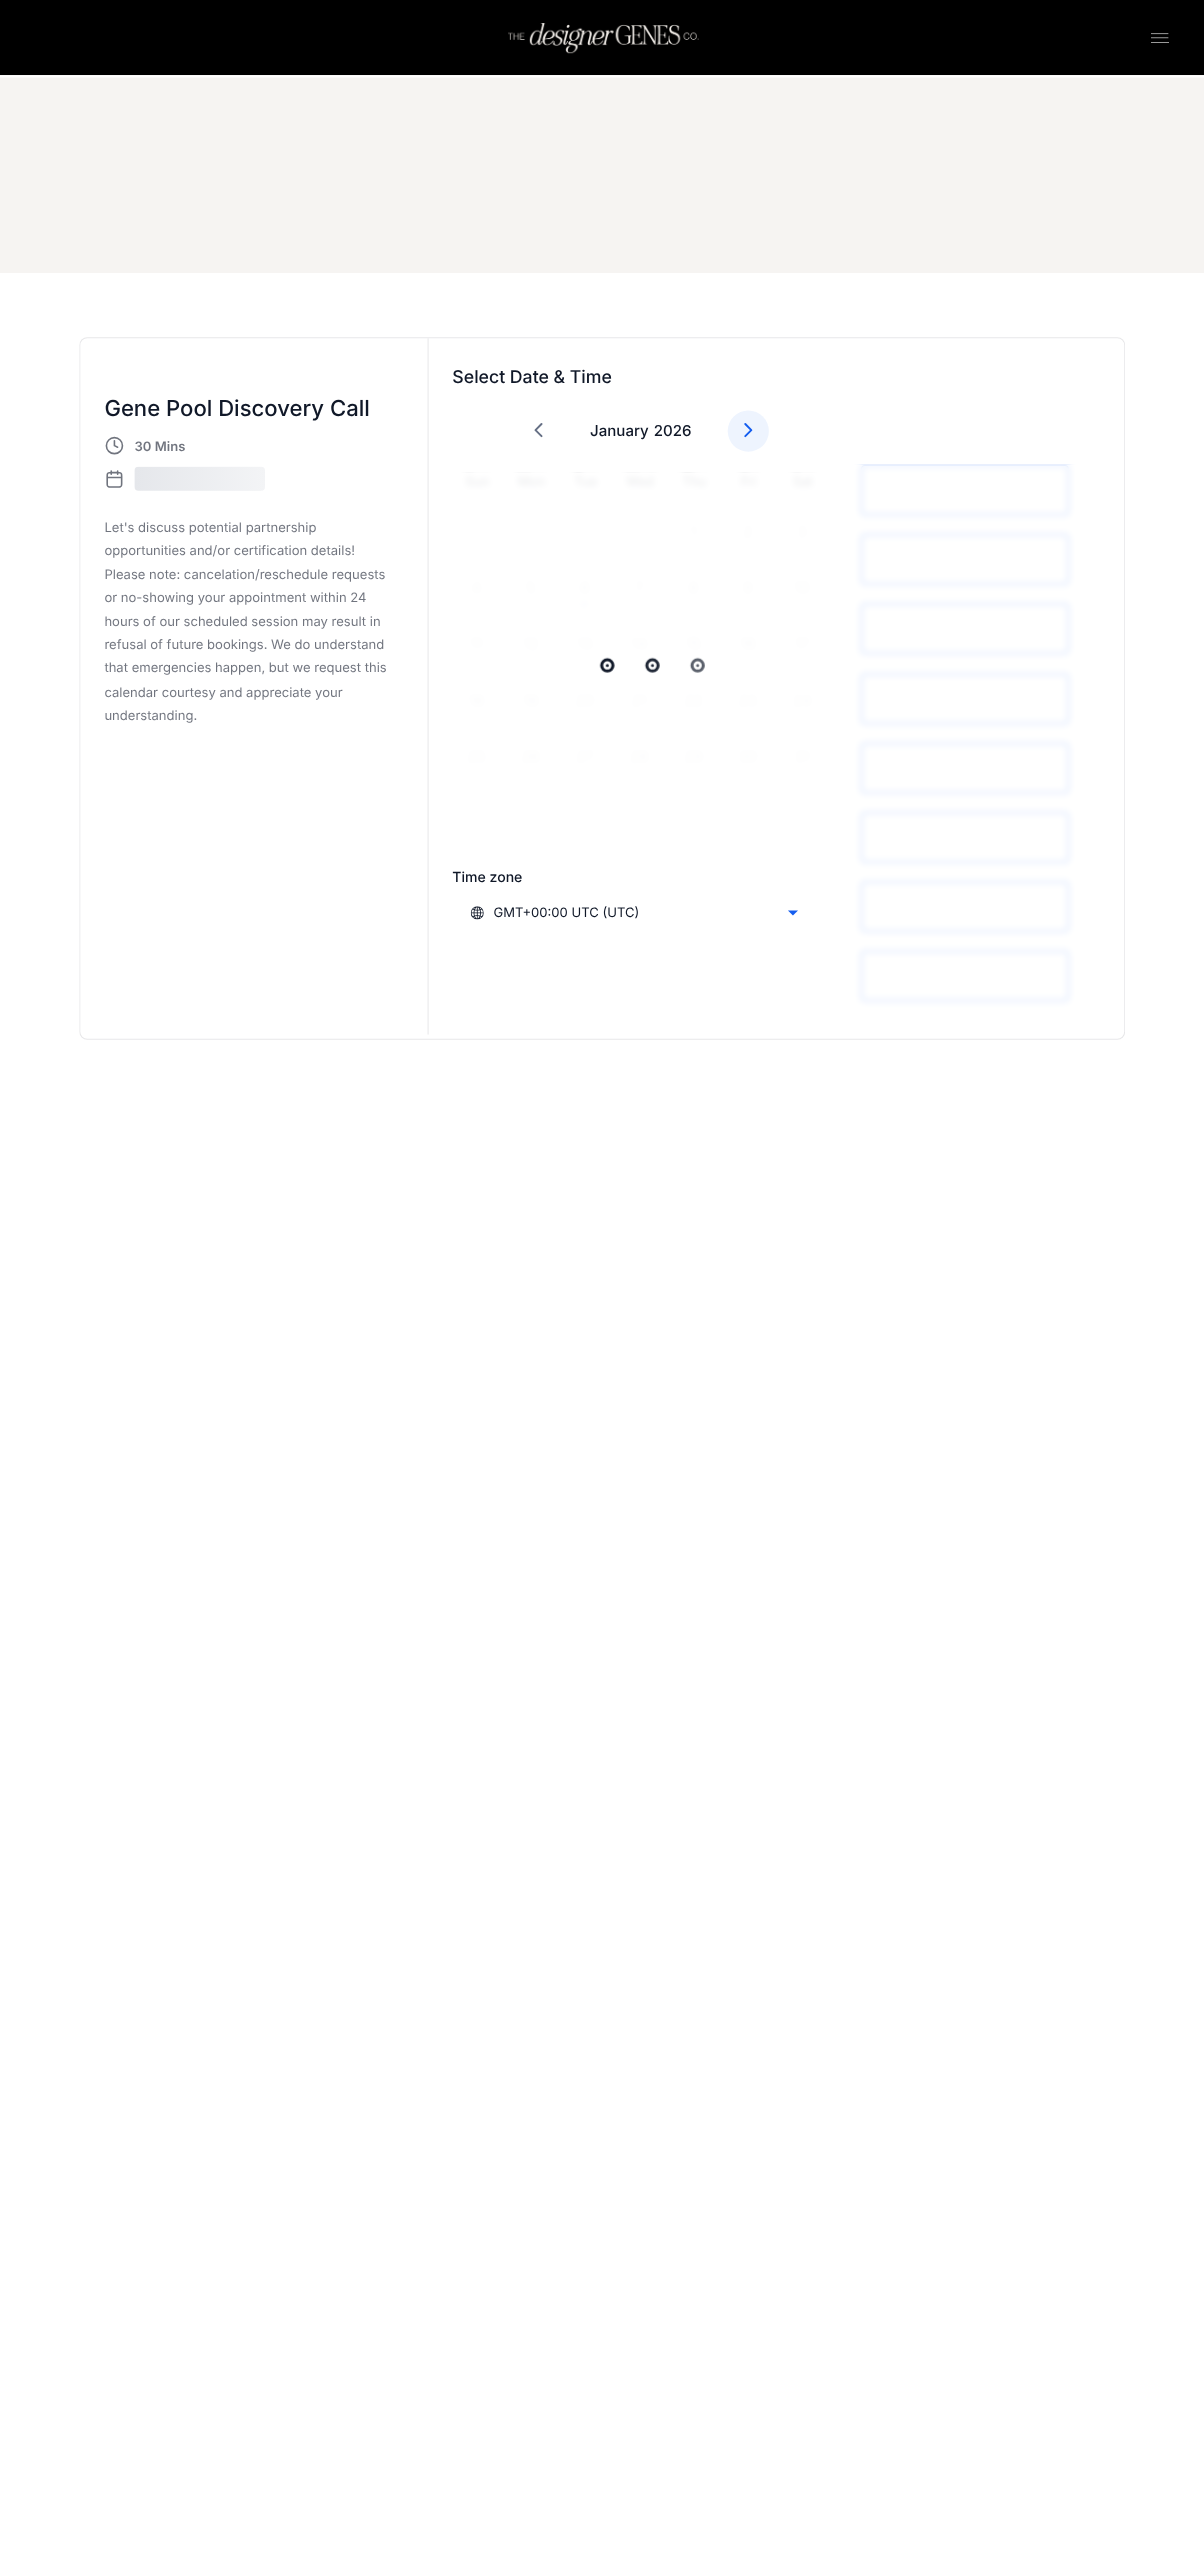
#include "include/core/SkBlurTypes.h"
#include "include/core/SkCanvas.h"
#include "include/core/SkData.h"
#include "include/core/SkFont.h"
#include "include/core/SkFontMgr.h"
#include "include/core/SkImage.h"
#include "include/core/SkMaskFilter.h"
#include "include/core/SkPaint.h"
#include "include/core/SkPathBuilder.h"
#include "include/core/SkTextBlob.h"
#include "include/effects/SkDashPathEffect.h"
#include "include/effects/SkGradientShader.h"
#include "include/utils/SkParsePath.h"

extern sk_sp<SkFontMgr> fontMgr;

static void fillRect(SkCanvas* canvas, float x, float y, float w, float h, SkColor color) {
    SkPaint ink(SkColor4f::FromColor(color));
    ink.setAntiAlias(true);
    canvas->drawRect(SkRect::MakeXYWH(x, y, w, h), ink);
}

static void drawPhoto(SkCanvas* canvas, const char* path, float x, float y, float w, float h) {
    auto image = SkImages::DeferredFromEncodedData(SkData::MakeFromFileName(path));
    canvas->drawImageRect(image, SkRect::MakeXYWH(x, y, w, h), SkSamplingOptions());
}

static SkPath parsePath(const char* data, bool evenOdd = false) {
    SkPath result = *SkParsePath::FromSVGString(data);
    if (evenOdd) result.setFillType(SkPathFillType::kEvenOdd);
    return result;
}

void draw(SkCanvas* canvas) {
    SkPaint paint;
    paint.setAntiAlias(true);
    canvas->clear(0xFFFFFFFF);
    fillRect(canvas, 0, 0, 1204, 75, 0xFF000000);
    drawPhoto(canvas, "assets/img1.png", 508, 23, 191, 31);
    drawPhoto(canvas, "assets/img2.png", 1151, 33, 18, 10);
    fillRect(canvas, 0, 75, 1204, 198, 0xFFF6F4F2);
    paint.setStroke(true);
    paint.setStrokeWidth(2);
    paint.setColor(0xFFFFFFFF);
    canvas->drawPath(parsePath("M-.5 76.5H1204"), paint);
    drawPhoto(canvas, "assets/img3.png", 79, 337, 1046, 703);
}
